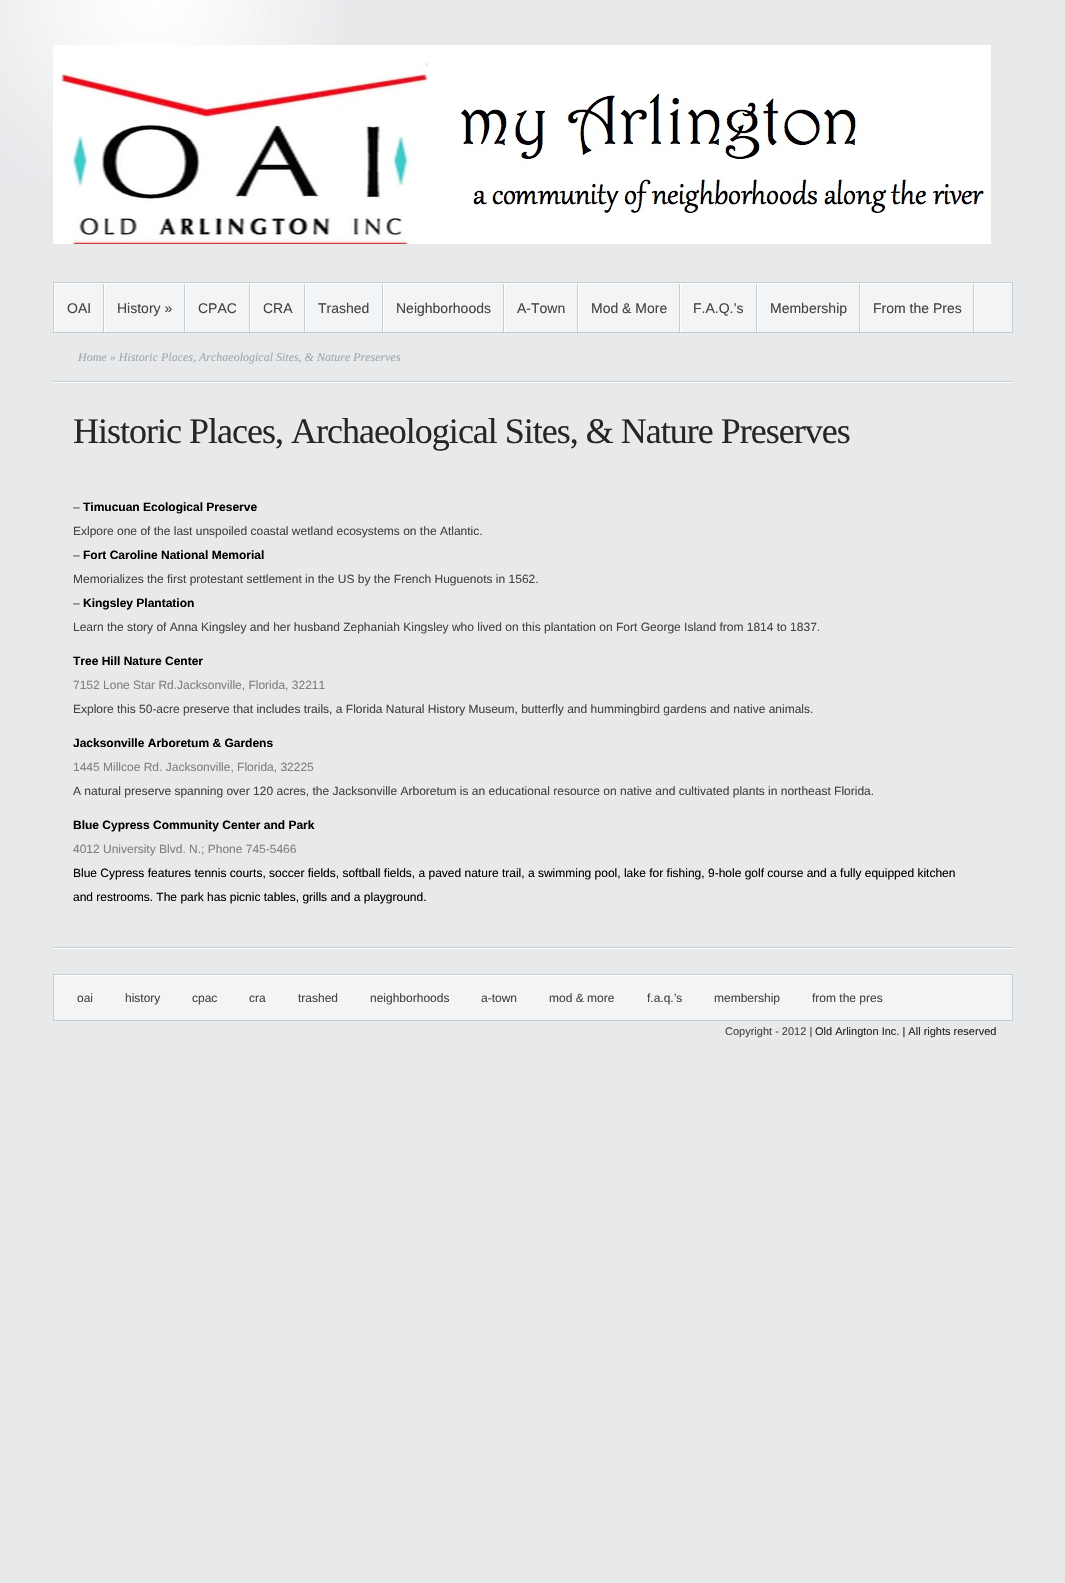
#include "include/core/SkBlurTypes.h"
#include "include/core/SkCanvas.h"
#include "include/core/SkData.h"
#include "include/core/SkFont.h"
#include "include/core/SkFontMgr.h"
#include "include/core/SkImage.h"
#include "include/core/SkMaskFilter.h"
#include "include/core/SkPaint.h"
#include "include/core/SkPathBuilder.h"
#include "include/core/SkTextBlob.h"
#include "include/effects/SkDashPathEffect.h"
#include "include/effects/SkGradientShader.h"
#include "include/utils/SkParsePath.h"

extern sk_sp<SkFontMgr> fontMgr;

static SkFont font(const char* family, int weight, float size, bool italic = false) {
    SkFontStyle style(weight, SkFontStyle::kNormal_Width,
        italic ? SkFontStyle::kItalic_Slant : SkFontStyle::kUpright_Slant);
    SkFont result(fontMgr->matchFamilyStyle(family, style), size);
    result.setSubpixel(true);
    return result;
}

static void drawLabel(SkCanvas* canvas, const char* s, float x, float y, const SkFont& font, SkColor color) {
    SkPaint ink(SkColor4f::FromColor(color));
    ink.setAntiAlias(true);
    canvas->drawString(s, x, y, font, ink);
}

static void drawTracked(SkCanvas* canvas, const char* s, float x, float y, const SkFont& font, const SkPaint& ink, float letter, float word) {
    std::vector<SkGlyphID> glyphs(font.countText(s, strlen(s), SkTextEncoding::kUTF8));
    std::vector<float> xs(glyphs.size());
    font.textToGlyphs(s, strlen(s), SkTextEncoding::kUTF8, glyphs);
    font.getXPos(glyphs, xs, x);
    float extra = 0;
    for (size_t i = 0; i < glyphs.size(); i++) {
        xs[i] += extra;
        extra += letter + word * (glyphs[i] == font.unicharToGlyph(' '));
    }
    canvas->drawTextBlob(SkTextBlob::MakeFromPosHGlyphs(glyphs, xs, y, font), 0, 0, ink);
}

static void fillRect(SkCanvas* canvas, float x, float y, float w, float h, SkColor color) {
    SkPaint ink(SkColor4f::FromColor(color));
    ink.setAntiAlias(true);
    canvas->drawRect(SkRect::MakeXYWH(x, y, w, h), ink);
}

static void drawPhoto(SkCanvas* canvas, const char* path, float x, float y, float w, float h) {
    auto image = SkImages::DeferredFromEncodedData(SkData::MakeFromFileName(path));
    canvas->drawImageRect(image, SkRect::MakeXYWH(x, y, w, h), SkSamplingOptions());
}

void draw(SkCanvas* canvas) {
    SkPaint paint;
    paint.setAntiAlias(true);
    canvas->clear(0xFFE7E9EB);
    drawPhoto(canvas, "assets/img1.png", 0, 0, 337, 178);
    drawPhoto(canvas, "assets/img2.png", 53, 45, 938, 199);
    fillRect(canvas, 55, 284, 957, 48, 0xFFF3F4F5);
    fillRect(canvas, 53, 283, 960, 1, 0xFFFFFFFF);
    paint.setStroke(true);
    paint.setStrokeWidth(1);
    paint.setColor(0xFFC7CED1);
    canvas->drawRect(SkRect::MakeXYWH(53.5f, 282.5f, 959, 50), paint);
    fillRect(canvas, 103, 284, 1, 48, 0xFFC7CED1);
    fillRect(canvas, 54, 284, 1, 48, 0xFFFFFFFF);
    SkFont font1 = font("Liberation Sans", 400, 14);
    drawLabel(canvas, "OAI", 67, 313, font1, 0xFF434343);
    fillRect(canvas, 184, 284, 1, 48, 0xFFC7CED1);
    fillRect(canvas, 104, 284, 1, 48, 0xFFFFFFFF);
    drawLabel(canvas, "History »", 117, 313, font1, 0xFF434343);
    fillRect(canvas, 249, 284, 1, 48, 0xFFC7CED1);
    fillRect(canvas, 185, 284, 1, 48, 0xFFFFFFFF);
    drawLabel(canvas, "CPAC", 198, 313, font1, 0xFF434343);
    fillRect(canvas, 304, 284, 1, 48, 0xFFC7CED1);
    fillRect(canvas, 250, 284, 1, 48, 0xFFFFFFFF);
    drawLabel(canvas, "CRA", 263, 313, font1, 0xFF434343);
    fillRect(canvas, 382, 284, 1, 48, 0xFFC7CED1);
    fillRect(canvas, 305, 284, 1, 48, 0xFFFFFFFF);
    drawLabel(canvas, "Trashed", 318, 313, font1, 0xFF434343);
    fillRect(canvas, 503, 284, 1, 48, 0xFFC7CED1);
    fillRect(canvas, 383, 284, 1, 48, 0xFFFFFFFF);
    drawLabel(canvas, "Neighborhoods", 396, 313, font1, 0xFF434343);
    fillRect(canvas, 577, 284, 1, 48, 0xFFC7CED1);
    fillRect(canvas, 504, 284, 1, 48, 0xFFFFFFFF);
    drawLabel(canvas, "A-Town", 517, 313, font1, 0xFF434343);
    fillRect(canvas, 679, 284, 1, 48, 0xFFC7CED1);
    fillRect(canvas, 578, 284, 1, 48, 0xFFFFFFFF);
    drawLabel(canvas, "Mod & More", 591, 313, font1, 0xFF434343);
    fillRect(canvas, 756, 284, 1, 48, 0xFFC7CED1);
    fillRect(canvas, 680, 284, 1, 48, 0xFFFFFFFF);
    drawLabel(canvas, "F.A.Q.’s", 693, 313, font1, 0xFF434343);
    fillRect(canvas, 859, 284, 1, 48, 0xFFC7CED1);
    fillRect(canvas, 757, 284, 1, 48, 0xFFFFFFFF);
    drawLabel(canvas, "Membership", 770, 313, font1, 0xFF434343);
    drawPhoto(canvas, "assets/img3.png", 973, 284, 2, 48);
    fillRect(canvas, 860, 284, 1, 48, 0xFFFFFFFF);
    drawLabel(canvas, "From the Pres", 873, 313, font1, 0xFF434343);
    drawPhoto(canvas, "assets/img4.png", 53, 381, 960, 2);
    SkFont font2 = font("Liberation Serif", 400, 12, true);
    drawLabel(canvas, "Home » Historic Places, Archaeological Sites, & Nature Preserves", 78, 361, font2, 0xFFA0A7AC);
    drawPhoto(canvas, "assets/img5.png", 53, 947, 961, 2);
    SkFont font3 = font("Liberation Serif", 400, 36);
    paint.setStroke(false);
    paint.setColor(0xFF262626);
    drawTracked(canvas, "Historic Places, Archaeological Sites, & Nature Preserves", 73, 443, font3, paint, -1, 0);
    SkFont font4 = font("Liberation Sans", 400, 12);
    drawLabel(canvas, "–", 73, 511, font4, 0xFF434343);
    SkFont font5 = font("Liberation Sans", 700, 12);
    drawLabel(canvas, "Timucuan Ecological Preserve", 83, 511, font5, 0xFF000000);
    drawLabel(canvas, "Exlpore one of the last unspoiled coastal wetland ecosystems on the Atlantic.", 73, 535, font4, 0xFF434343);
    drawLabel(canvas, "–", 73, 559, font4, 0xFF434343);
    drawLabel(canvas, "Fort Caroline National Memorial", 83, 559, font5, 0xFF000000);
    drawLabel(canvas, "Memorializes the first protestant settlement in the US by the French Huguenots in 1562.", 73, 583, font4, 0xFF434343);
    drawLabel(canvas, "–", 73, 607, font4, 0xFF434343);
    drawLabel(canvas, "Kingsley Plantation", 83, 607, font5, 0xFF000000);
    drawLabel(canvas, "Learn the story of Anna Kingsley and her husband Zephaniah Kingsley who lived on this plantation on Fort George Island from 1814 to 1837.", 73, 631, font4, 0xFF434343);
    drawLabel(canvas, "Tree Hill Nature Center", 73, 665, font5, 0xFF000000);
    drawLabel(canvas, "7152 Lone Star Rd.Jacksonville, Florida, 32211", 73, 689, font4, 0xFF808080);
    drawLabel(canvas, "Explore this 50-acre preserve that includes trails, a Florida Natural History Museum, butterfly and hummingbird gardens and native animals.", 73, 713, font4, 0xFF434343);
    drawLabel(canvas, "Jacksonville Arboretum & Gardens", 73, 747, font5, 0xFF000000);
    drawLabel(canvas, "1445 Millcoe Rd. Jacksonville, Florida, 32225", 73, 771, font4, 0xFF808080);
    drawLabel(canvas, "A natural preserve spanning over 120 acres, the Jacksonville Arboretum is an educational resource on native and cultivated plants in northeast Florida.", 73, 795, font4, 0xFF434343);
    drawLabel(canvas, "Blue Cypress Community Center and Park", 73, 829, font5, 0xFF000000);
    drawLabel(canvas, "4012 University Blvd. N.; Phone 745-5466", 73, 853, font4, 0xFF808080);
    drawLabel(canvas, "Blue Cypress features tennis courts, soccer fields, softball fields, a paved nature trail, a swimming pool, lake for fishing, 9-hole golf course and a fully equipped kitchen", 73, 877, font4, 0xFF000000);
    drawLabel(canvas, "and restrooms. The park has picnic tables, grills and a playground.", 73, 901, font4, 0xFF000000);
    fillRect(canvas, 54, 976, 958, 44, 0xFFF3F4F5);
    paint.setStroke(true);
    paint.setColor(0xFFC7CED1);
    canvas->drawRect(SkRect::MakeXYWH(53.5f, 974.5f, 959, 46), paint);
    fillRect(canvas, 54, 975, 958, 1, 0xFFFFFFFF);
    drawLabel(canvas, "oai", 77, 1002, font4, 0xFF434343);
    drawLabel(canvas, "history", 125, 1002, font4, 0xFF434343);
    drawLabel(canvas, "cpac", 192, 1002, font4, 0xFF434343);
    drawLabel(canvas, "cra", 249, 1002, font4, 0xFF434343);
    drawLabel(canvas, "trashed", 298, 1002, font4, 0xFF434343);
    drawLabel(canvas, "neighborhoods", 370, 1002, font4, 0xFF434343);
    drawLabel(canvas, "a-town", 481, 1002, font4, 0xFF434343);
    drawLabel(canvas, "mod & more", 549, 1002, font4, 0xFF434343);
    drawLabel(canvas, "f.a.q.’s", 647, 1002, font4, 0xFF434343);
    drawLabel(canvas, "membership", 714, 1002, font4, 0xFF434343);
    drawLabel(canvas, "from the pres", 812, 1002, font4, 0xFF434343);
    SkFont font6 = font("Liberation Sans", 400, 11);
    drawLabel(canvas, "Copyright - 2012 |", 725, 1035, font6, 0xFF434343);
    drawLabel(canvas, "Old Arlington Inc. | All rights reserved", 815, 1035, font6, 0xFF262626);
}
